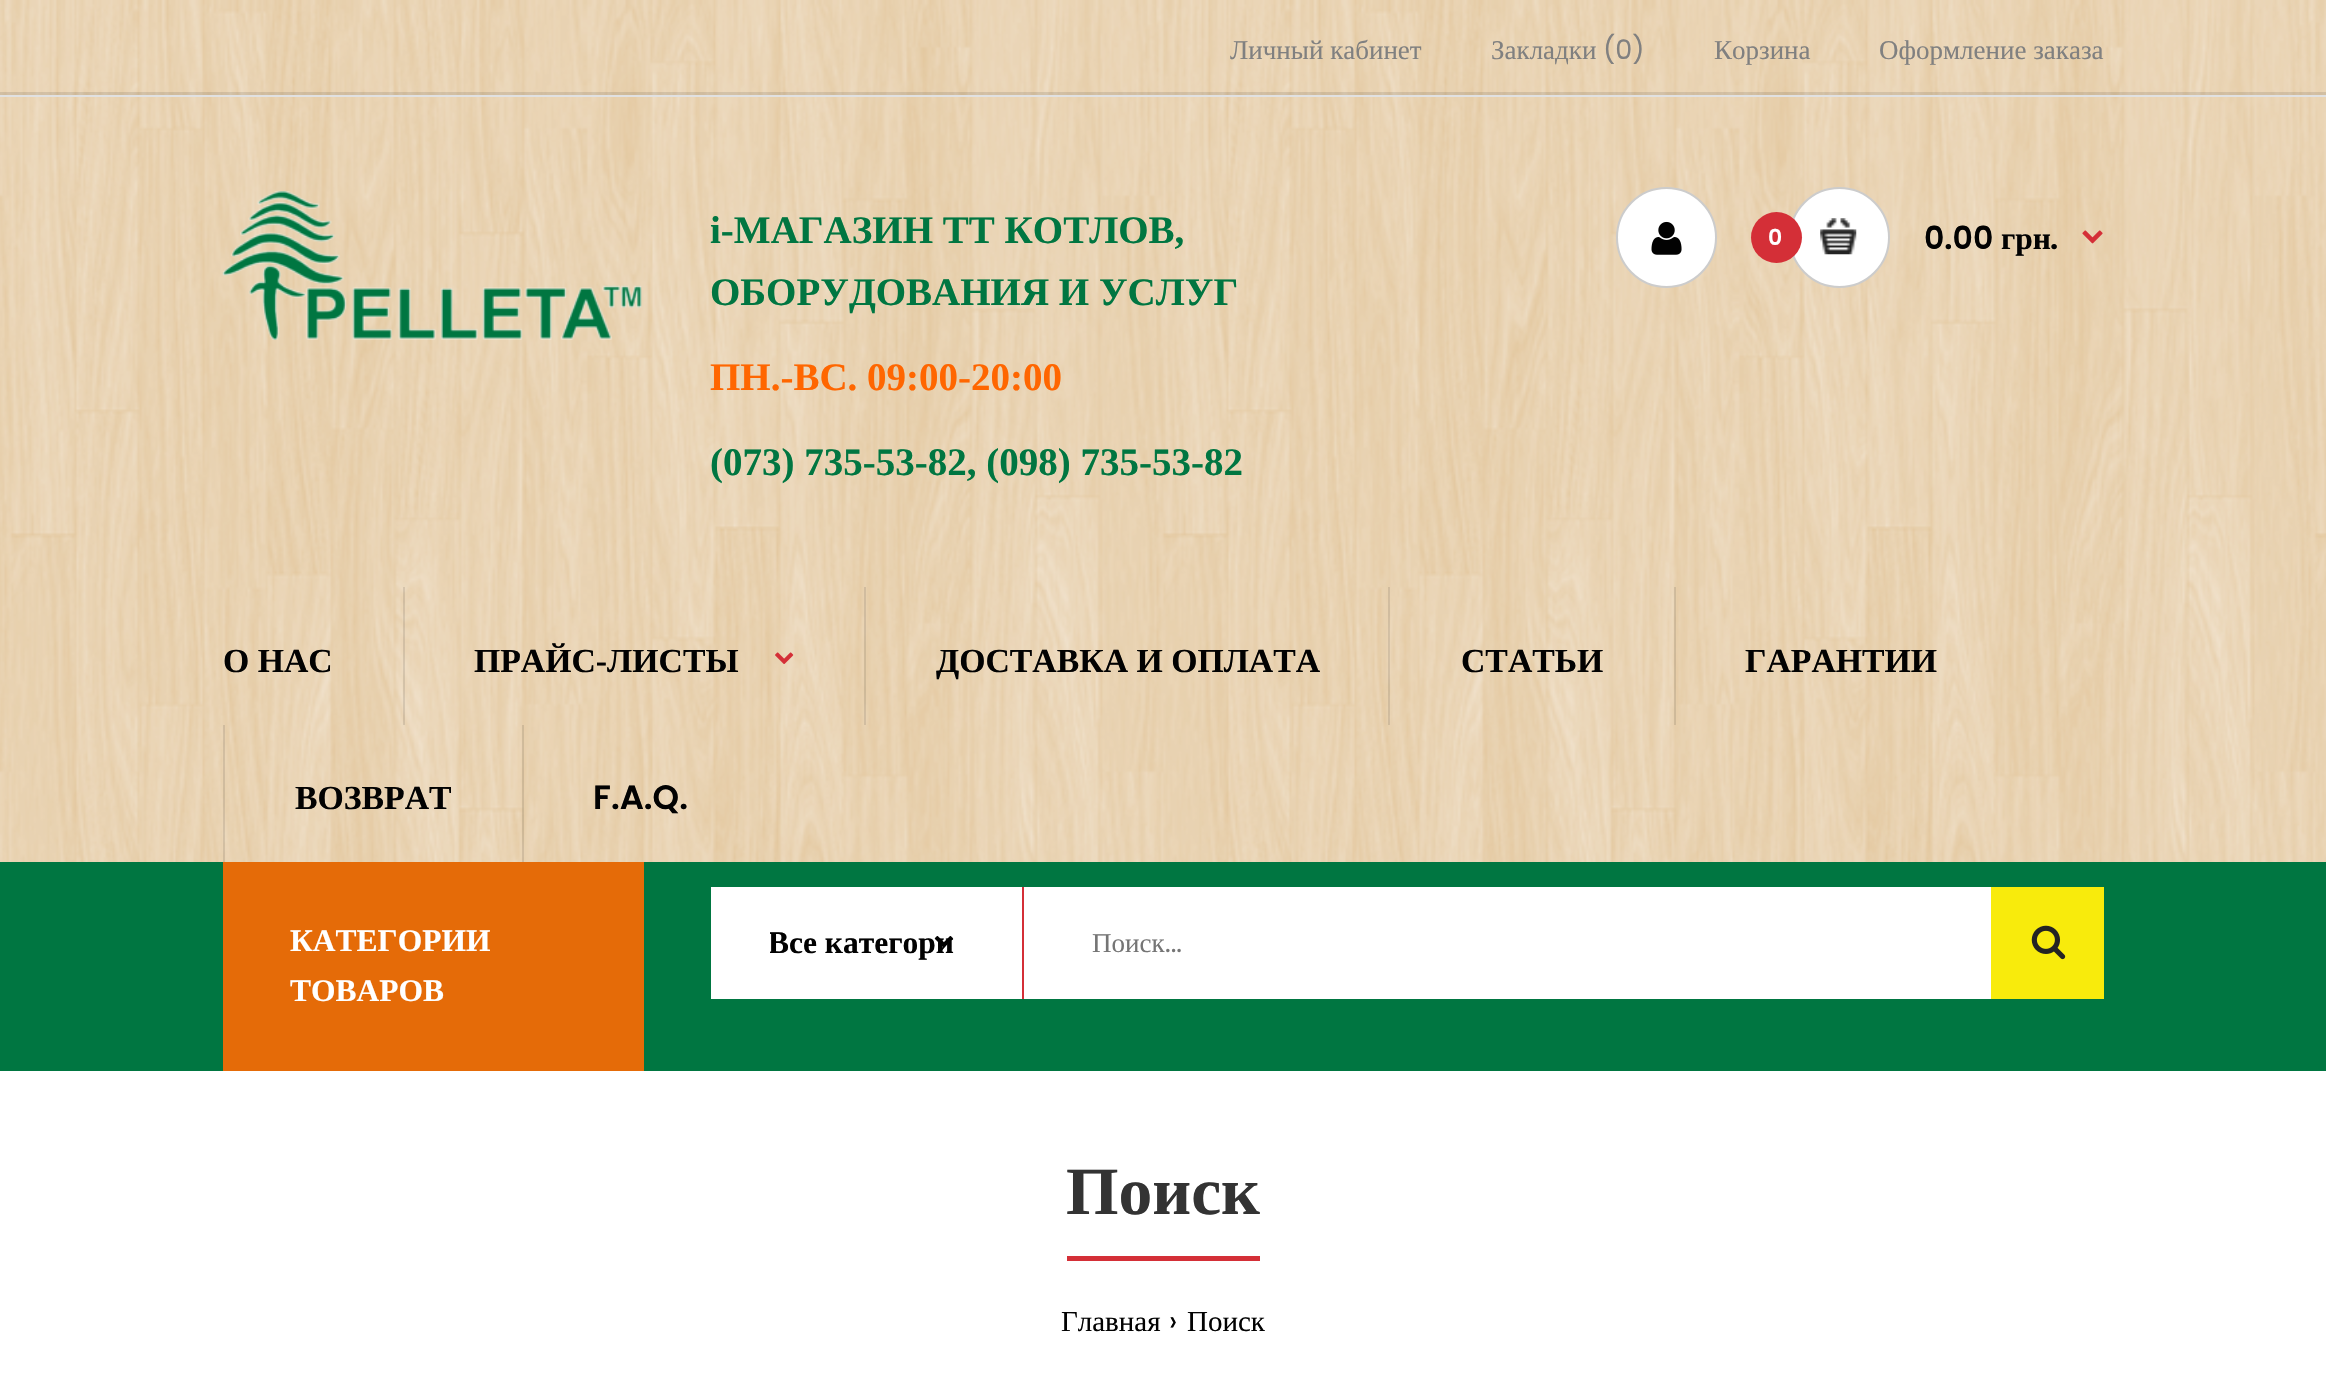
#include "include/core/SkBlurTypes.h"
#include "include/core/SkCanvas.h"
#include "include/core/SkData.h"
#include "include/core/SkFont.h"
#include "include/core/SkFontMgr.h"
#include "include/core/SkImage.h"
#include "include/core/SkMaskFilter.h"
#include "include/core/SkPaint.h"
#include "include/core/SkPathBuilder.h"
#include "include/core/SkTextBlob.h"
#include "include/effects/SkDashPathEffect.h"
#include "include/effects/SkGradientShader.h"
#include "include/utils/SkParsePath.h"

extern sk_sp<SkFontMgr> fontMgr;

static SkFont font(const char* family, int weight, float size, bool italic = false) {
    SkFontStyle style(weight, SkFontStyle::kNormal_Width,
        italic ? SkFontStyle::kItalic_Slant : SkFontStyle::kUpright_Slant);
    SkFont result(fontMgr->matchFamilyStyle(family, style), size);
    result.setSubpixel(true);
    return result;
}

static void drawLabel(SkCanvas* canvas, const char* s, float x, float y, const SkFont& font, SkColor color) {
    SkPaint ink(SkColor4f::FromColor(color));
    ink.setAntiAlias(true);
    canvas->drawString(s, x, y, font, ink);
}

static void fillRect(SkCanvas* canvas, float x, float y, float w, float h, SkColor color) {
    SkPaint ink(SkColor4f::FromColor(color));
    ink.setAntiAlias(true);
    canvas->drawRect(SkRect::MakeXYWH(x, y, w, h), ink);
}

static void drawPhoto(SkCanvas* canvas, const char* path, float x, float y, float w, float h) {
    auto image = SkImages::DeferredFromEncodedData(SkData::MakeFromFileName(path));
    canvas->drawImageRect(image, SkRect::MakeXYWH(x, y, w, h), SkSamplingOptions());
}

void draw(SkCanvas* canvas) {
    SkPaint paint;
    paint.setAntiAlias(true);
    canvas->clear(0xFFFFFFFF);
    drawPhoto(canvas, "assets/img1.png", 0, 0, 2326, 862);
    fillRect(canvas, 0, 92, 2326, 3, 0x1A000000);
    fillRect(canvas, 0, 95, 2326, 2, 0xFFE1E1E1);
    SkFont font1 = font("Liberation Serif", 400, 27);
    drawLabel(canvas, "Личный кабинет", 1230, 59, font1, 0xFF808080);
    drawLabel(canvas, "Закладки", 1491, 59, font1, 0xFF808080);
    SkFont font2 = font("Poppins", 400, 27);
    drawLabel(canvas, "(0)", 1603, 59, font2, 0xFF808080);
    drawLabel(canvas, "Корзина", 1714, 59, font1, 0xFF808080);
    drawLabel(canvas, "Оформление заказа", 1879, 59, font1, 0xFF808080);
    drawPhoto(canvas, "assets/img2.png", 222, 191, 420, 149);
    SkFont font3 = font("Liberation Serif", 700, 39);
    drawLabel(canvas, "i-МАГАЗИН ТТ КОТЛОВ,", 710, 243, font3, 0xFF007641);
    drawLabel(canvas, "ОБОРУДОВАНИЯ И УСЛУГ", 710, 305, font3, 0xFF007641);
    drawLabel(canvas, "ПН.-ВС. 09:00-20:00", 710, 390, font3, 0xFFFF6600);
    drawLabel(canvas, "(073) 735-53-82, (098) 735-53-82", 710, 475, font3, 0xFF007641);
    paint.setColor(0xFFFFFFFF);
    canvas->drawCircle(1666.5f, 237.5f, 49.5f, paint);
    paint.setStroke(true);
    paint.setStrokeWidth(2);
    paint.setColor(0xFFCCCCCC);
    canvas->drawCircle(1666.5f, 237.5f, 49.5f, paint);
    drawPhoto(canvas, "assets/img3.png", 1651, 221, 31, 34);
    paint.setStroke(false);
    paint.setColor(0xFFFFFFFF);
    canvas->drawCircle(1839.5f, 237.5f, 49.5f, paint);
    paint.setStroke(true);
    paint.setColor(0xFFCCCCCC);
    canvas->drawCircle(1839.5f, 237.5f, 49.5f, paint);
    paint.setStroke(false);
    paint.setColor(0xFFD42F37);
    canvas->drawCircle(1776.5f, 237.5f, 25.5f, paint);
    SkFont font4 = font("Poppins", 600, 22);
    drawLabel(canvas, "0", 1768, 245, font4, 0xFFFFFFFF);
    drawPhoto(canvas, "assets/img4.png", 1820, 218, 37, 37);
    SkFont font5 = font("Poppins", 600, 31.5f);
    drawLabel(canvas, "0.00", 1924, 249, font5, 0xFF020202);
    SkFont font6 = font("Liberation Serif", 700, 31.5f);
    drawLabel(canvas, "грн", 2001, 249, font6, 0xFF020202);
    drawLabel(canvas, ".", 2050, 249, font5, 0xFF020202);
    drawPhoto(canvas, "assets/img5.png", 2082, 230, 21, 14);
    SkFont font7 = font("Liberation Serif", 700, 33.75f);
    drawLabel(canvas, "О НАС", 223, 672, font7, 0xFF020202);
    fillRect(canvas, 403, 587, 2, 138, 0x1A000000);
    drawLabel(canvas, "ПРАЙС-ЛИСТЫ", 474, 672, font7, 0xFF020202);
    drawPhoto(canvas, "assets/img6.png", 775, 652, 19, 12);
    fillRect(canvas, 864, 587, 2, 138, 0x1A000000);
    drawLabel(canvas, "ДОСТАВКА И ОПЛАТА", 936, 672, font7, 0xFF020202);
    fillRect(canvas, 1388, 587, 2, 138, 0x1A000000);
    drawLabel(canvas, "СТАТЬИ", 1461, 672, font7, 0xFF020202);
    fillRect(canvas, 1674, 587, 2, 138, 0x1A000000);
    drawLabel(canvas, "ГАРАНТИИ", 1745, 672, font7, 0xFF020202);
    fillRect(canvas, 223, 725, 2, 137, 0x1A000000);
    drawLabel(canvas, "ВОЗВРАТ", 295, 809, font7, 0xFF020202);
    fillRect(canvas, 522, 725, 2, 137, 0x1A000000);
    SkFont font8 = font("Poppins", 600, 33.75f);
    drawLabel(canvas, "F.A.Q.", 593, 809, font8, 0xFF020202);
    fillRect(canvas, 0, 862, 2326, 209, 0xFF007641);
    fillRect(canvas, 223, 862, 421, 209, 0xFFE56B08);
    drawLabel(canvas, "КАТЕГОРИИ", 290, 951, font6, 0xFFFFFFFF);
    drawLabel(canvas, "ТОВАРОВ", 290, 1001, font6, 0xFFFFFFFF);
    fillRect(canvas, 711, 887, 1280, 112, 0xFFFFFFFF);
    fillRect(canvas, 1022, 887, 2, 112, 0xFFD42F37);
    canvas->save();
    canvas->clipRect(SkRect::MakeXYWH(770, 916, 193, 52));
    drawLabel(canvas, "Все категори", 768, 953, font6, 0xFF020202);
    canvas->restore();
    drawPhoto(canvas, "assets/img7.png", 934, 936, 19, 12);
    drawLabel(canvas, "Поиск", 1092, 952, font1, 0xFF757575);
    drawLabel(canvas, "...", 1165, 952, font2, 0xFF757575);
    fillRect(canvas, 1991, 887, 113, 112, 0xFFF8EB0C);
    drawPhoto(canvas, "assets/img8.png", 2031, 925, 35, 35);
    fillRect(canvas, 1067, 1256, 193, 5, 0xFFD42F37);
    SkFont font9 = font("Liberation Serif", 700, 67.5f);
    drawLabel(canvas, "Поиск", 1066, 1214, font9, 0xFF333333);
    SkFont font10 = font("Liberation Serif", 400, 29);
    drawLabel(canvas, "Главная", 1061, 1331, font10, 0xFF020202);
    SkFont font11 = font("Poppins", 400, 29);
    drawLabel(canvas, "›", 1169, 1331, font11, 0xFF020202);
    drawLabel(canvas, "Поиск", 1187, 1331, font10, 0xFF020202);
}
